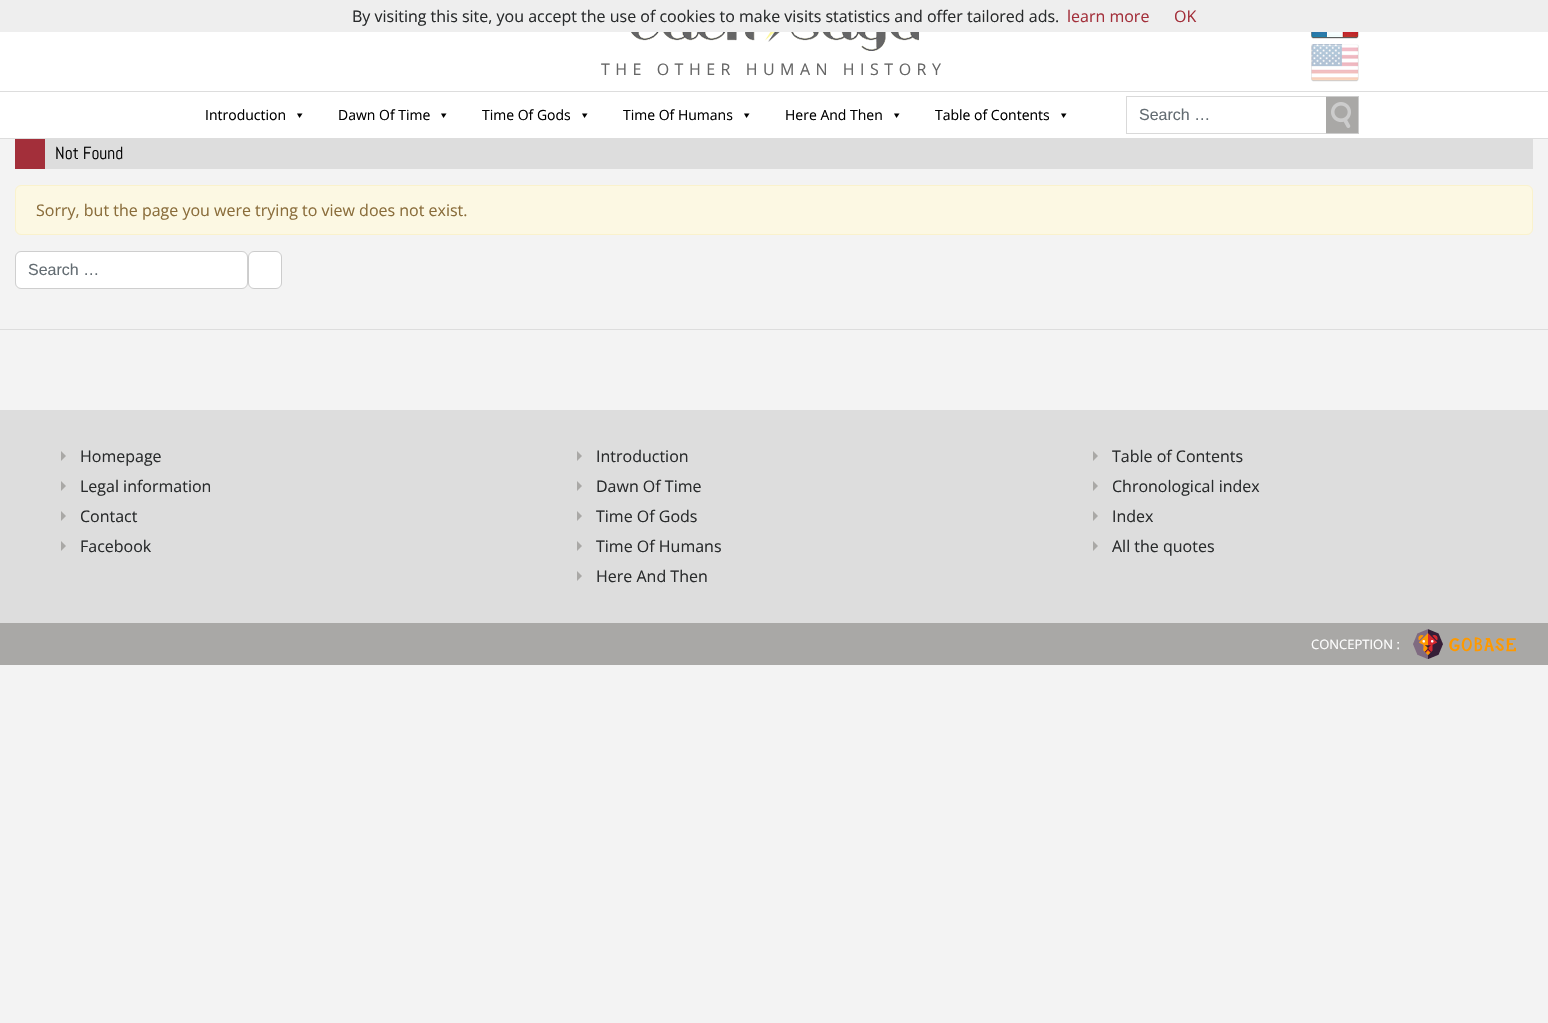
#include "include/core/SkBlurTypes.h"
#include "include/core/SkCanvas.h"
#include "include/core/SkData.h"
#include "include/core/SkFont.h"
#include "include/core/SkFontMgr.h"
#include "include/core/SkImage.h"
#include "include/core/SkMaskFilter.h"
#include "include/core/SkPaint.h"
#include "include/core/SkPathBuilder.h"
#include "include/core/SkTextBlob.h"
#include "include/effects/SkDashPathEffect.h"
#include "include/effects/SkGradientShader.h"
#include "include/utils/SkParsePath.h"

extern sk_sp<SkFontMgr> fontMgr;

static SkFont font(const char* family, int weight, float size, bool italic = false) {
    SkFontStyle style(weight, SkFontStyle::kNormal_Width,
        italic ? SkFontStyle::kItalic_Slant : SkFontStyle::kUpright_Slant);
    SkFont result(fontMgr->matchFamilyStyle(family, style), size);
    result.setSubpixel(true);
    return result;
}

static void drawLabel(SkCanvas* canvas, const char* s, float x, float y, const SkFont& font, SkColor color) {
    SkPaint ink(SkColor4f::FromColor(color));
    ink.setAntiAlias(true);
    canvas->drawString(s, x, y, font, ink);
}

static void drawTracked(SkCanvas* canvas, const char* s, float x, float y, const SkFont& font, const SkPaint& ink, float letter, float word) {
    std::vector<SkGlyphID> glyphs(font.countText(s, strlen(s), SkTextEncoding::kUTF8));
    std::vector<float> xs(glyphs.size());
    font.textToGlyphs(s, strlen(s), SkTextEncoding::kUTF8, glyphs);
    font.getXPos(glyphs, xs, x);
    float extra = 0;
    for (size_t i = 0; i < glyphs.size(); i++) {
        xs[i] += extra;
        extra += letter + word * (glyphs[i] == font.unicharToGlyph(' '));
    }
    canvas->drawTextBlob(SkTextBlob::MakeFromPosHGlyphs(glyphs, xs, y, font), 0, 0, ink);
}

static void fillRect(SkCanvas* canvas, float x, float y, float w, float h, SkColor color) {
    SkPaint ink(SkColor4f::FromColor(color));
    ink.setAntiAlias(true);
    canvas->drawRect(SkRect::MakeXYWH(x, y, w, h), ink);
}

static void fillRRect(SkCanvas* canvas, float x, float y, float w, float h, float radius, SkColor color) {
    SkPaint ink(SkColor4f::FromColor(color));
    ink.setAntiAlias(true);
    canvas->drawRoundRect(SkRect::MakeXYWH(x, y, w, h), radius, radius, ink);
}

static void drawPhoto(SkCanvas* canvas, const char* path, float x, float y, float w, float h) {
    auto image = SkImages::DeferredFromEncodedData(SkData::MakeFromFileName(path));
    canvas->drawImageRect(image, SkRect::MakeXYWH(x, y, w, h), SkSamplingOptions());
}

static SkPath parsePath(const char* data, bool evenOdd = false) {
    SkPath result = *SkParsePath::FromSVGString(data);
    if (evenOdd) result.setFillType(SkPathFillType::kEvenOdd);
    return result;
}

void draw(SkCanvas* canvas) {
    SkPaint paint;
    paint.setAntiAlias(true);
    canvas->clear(0xFFF3F3F3);
    fillRect(canvas, 0, 0, 1548, 32, 0xFFEEEEEE);
    SkFont font1 = font("Open Sans", 400, 16);
    drawLabel(canvas, "By visiting this site, you accept the use of cookies to make visits statistics and offer tailored ads.", 352, 22, font1, 0xFF292B2C);
    drawLabel(canvas, "learn more", 1067, 22, font1, 0xFFA32F3A);
    drawLabel(canvas, "OK", 1174, 22, font1, 0xFFA32F3A);
    fillRect(canvas, 0, 32, 1548, 106, 0xFFFFFFFF);
    drawPhoto(canvas, "assets/img1.png", 631, 32, 288, 19);
    paint.setColor(0xFF666666);
    drawTracked(canvas, "THE OTHER HUMAN HISTORY", 601, 75, font1, paint, 5.5f, 0);
    drawPhoto(canvas, "assets/img2.png", 1311, 32, 48, 7);
    drawPhoto(canvas, "assets/img3.png", 1311, 44, 48, 38);
    fillRect(canvas, 0, 91, 1548, 1, 0xFFDDDDDD);
    fillRect(canvas, 0, 138, 1548, 1, 0xFFDDDDDD);
    SkFont font2 = font("Open Sans", 400, 14);
    drawLabel(canvas, "Introduction", 205, 120, font2, 0xFF000000);
    paint.setColor(0xFF000000);
    canvas->drawPath(parsePath("M302.5 113.5L299.5 118L297 113.5Z"), paint);
    drawLabel(canvas, "Dawn Of Time", 338, 120, font2, 0xFF000000);
    canvas->drawPath(parsePath("M446.5 113.5L443.5 118L441 113.5Z"), paint);
    drawLabel(canvas, "Time Of Gods", 482, 120, font2, 0xFF000000);
    canvas->drawPath(parsePath("M587.5 113.5L584.5 118L582 113.5Z"), paint);
    drawLabel(canvas, "Time Of Humans", 623, 120, font2, 0xFF000000);
    canvas->drawPath(parsePath("M749.5 113.5L746.5 118L744 113.5Z"), paint);
    drawLabel(canvas, "Here And Then", 785, 120, font2, 0xFF000000);
    canvas->drawPath(parsePath("M899.5 113.5L896.5 118L894 113.5Z"), paint);
    drawLabel(canvas, "Table of Contents", 935, 120, font2, 0xFF000000);
    canvas->drawPath(parsePath("M1066.5 113.5L1063.5 118L1061 113.5Z"), paint);
    paint.setStroke(true);
    paint.setStrokeWidth(1);
    paint.setColor(0xFFD9D9D9);
    canvas->drawRect(SkRect::MakeXYWH(1126.5f, 96.5f, 232, 37), paint);
    SkFont font3 = font("Liberation Sans", 400, 16);
    drawLabel(canvas, "Search …", 1139, 120, font3, 0xFF636C72);
    fillRect(canvas, 1326, 97, 32, 36, 0xFFA9A8A6);
    drawPhoto(canvas, "assets/img4.png", 1331, 102, 20, 26);
    fillRect(canvas, 1326, 96, 33, 1, 0xFFCCCCCC);
    fillRect(canvas, 1358, 96, 1, 38, 0xFFCCCCCC);
    fillRect(canvas, 1326, 133, 33, 1, 0xFFCCCCCC);
    fillRect(canvas, 45, 139, 1488, 30, 0xFFDDDDDD);
    fillRect(canvas, 15, 139, 30, 30, 0xFFA32F3A);
    SkFont font4 = font("Abel", 400, 17.5f);
    drawLabel(canvas, "Not Found", 55, 159, font4, 0xFF000000);
    paint.setStroke(false);
    paint.setColor(0xFFFCF8E3);
    canvas->drawRoundRect(SkRect::MakeXYWH(15.5f, 185.5f, 1517, 49), 5.5f, 5.5f, paint);
    paint.setStroke(true);
    paint.setColor(0xFFFAF2CC);
    canvas->drawRoundRect(SkRect::MakeXYWH(15.5f, 185.5f, 1517, 49), 5.5f, 5.5f, paint);
    drawLabel(canvas, "Sorry, but the page you were trying to view does not exist.", 36, 216, font1, 0xFF8A6D3B);
    fillRRect(canvas, 16, 252, 231, 36, 5, 0xFFFFFFFF);
    paint.setColor(0x26000000);
    canvas->drawRoundRect(SkRect::MakeXYWH(15.5f, 251.5f, 232, 37), 5.5f, 5.5f, paint);
    drawLabel(canvas, "Search …", 28, 275, font3, 0xFF636C72);
    paint.setStroke(false);
    paint.setColor(0xFFFFFFFF);
    canvas->drawRoundRect(SkRect::MakeXYWH(248.5f, 251.5f, 33, 37), 5.5f, 5.5f, paint);
    paint.setStroke(true);
    paint.setColor(0xFFCCCCCC);
    canvas->drawRoundRect(SkRect::MakeXYWH(248.5f, 251.5f, 33, 37), 5.5f, 5.5f, paint);
    fillRect(canvas, 0, 329, 1548, 1, 0xFFDDDDDD);
    fillRect(canvas, 0, 410, 1548, 213, 0xFFDDDDDD);
    paint.setStroke(false);
    paint.setColor(0xFFA9A8A6);
    canvas->drawPath(parsePath("M61 461V451L66 456Z"), paint);
    drawLabel(canvas, "Homepage", 80, 462, font1, 0xFF292B2C);
    canvas->drawPath(parsePath("M61 491V481L66 486Z"), paint);
    drawLabel(canvas, "Legal information", 80, 492, font1, 0xFF292B2C);
    canvas->drawPath(parsePath("M61 521V511L66 516Z"), paint);
    drawLabel(canvas, "Contact", 80, 522, font1, 0xFF292B2C);
    canvas->drawPath(parsePath("M61 551V541L66 546Z"), paint);
    drawLabel(canvas, "Facebook", 80, 552, font1, 0xFF292B2C);
    canvas->drawPath(parsePath("M577 461V451L582 456Z"), paint);
    drawLabel(canvas, "Introduction", 596, 462, font1, 0xFF292B2C);
    canvas->drawPath(parsePath("M577 491V481L582 486Z"), paint);
    drawLabel(canvas, "Dawn Of Time", 596, 492, font1, 0xFF292B2C);
    canvas->drawPath(parsePath("M577 521V511L582 516Z"), paint);
    drawLabel(canvas, "Time Of Gods", 596, 522, font1, 0xFF292B2C);
    canvas->drawPath(parsePath("M577 551V541L582 546Z"), paint);
    drawLabel(canvas, "Time Of Humans", 596, 552, font1, 0xFF292B2C);
    canvas->drawPath(parsePath("M577 581V571L582 576Z"), paint);
    drawLabel(canvas, "Here And Then", 596, 582, font1, 0xFF292B2C);
    canvas->drawPath(parsePath("M1093 461V451L1098 456Z"), paint);
    drawLabel(canvas, "Table of Contents", 1112, 462, font1, 0xFF292B2C);
    canvas->drawPath(parsePath("M1093 491V481L1098 486Z"), paint);
    drawLabel(canvas, "Chronological index", 1112, 492, font1, 0xFF292B2C);
    canvas->drawPath(parsePath("M1093 521V511L1098 516Z"), paint);
    drawLabel(canvas, "Index", 1112, 522, font1, 0xFF292B2C);
    canvas->drawPath(parsePath("M1093 551V541L1098 546Z"), paint);
    drawLabel(canvas, "All the quotes", 1112, 552, font1, 0xFF292B2C);
    fillRect(canvas, 0, 623, 1548, 42, 0xFFA9A8A6);
    SkFont font5 = font("Open Sans", 400, 13);
    drawLabel(canvas, "CONCEPTION :", 1311, 649, font5, 0xFFFFFFFF);
    drawPhoto(canvas, "assets/img5.png", 1413, 629, 103, 30);
}
